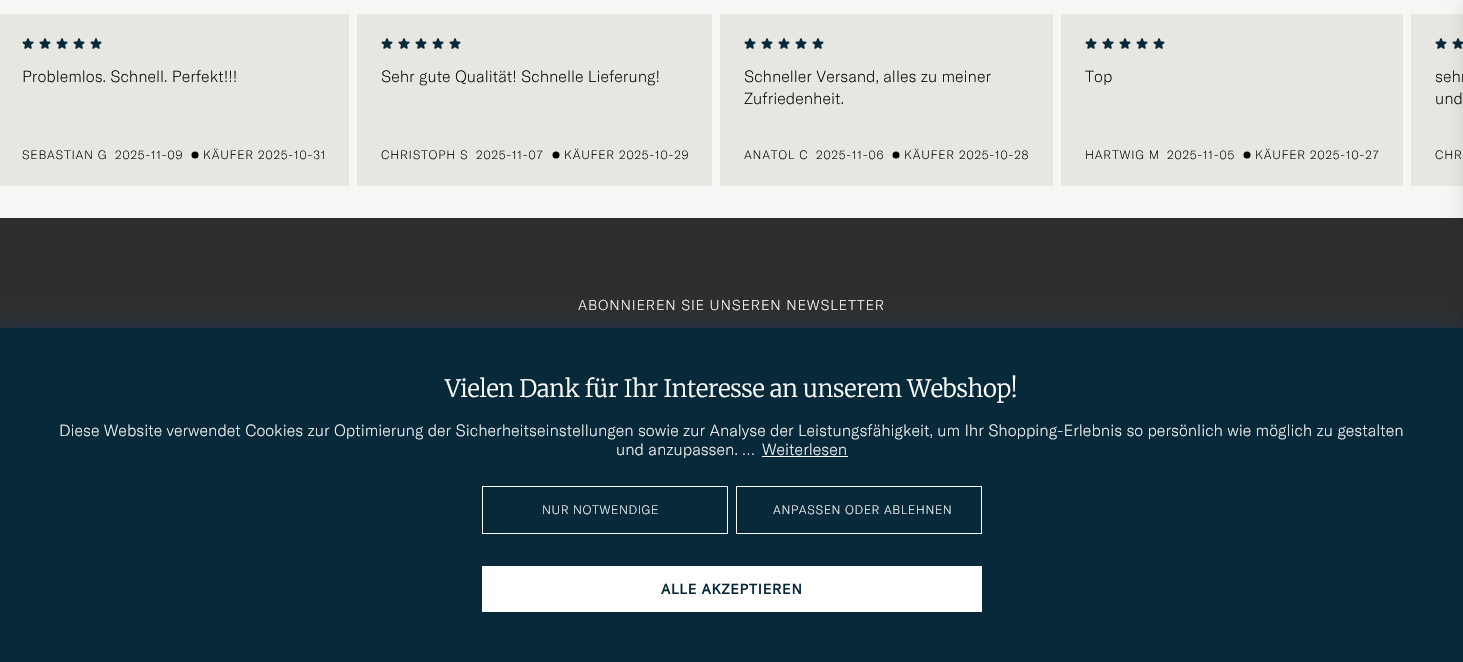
#include "include/core/SkBlurTypes.h"
#include "include/core/SkCanvas.h"
#include "include/core/SkData.h"
#include "include/core/SkFont.h"
#include "include/core/SkFontMgr.h"
#include "include/core/SkImage.h"
#include "include/core/SkMaskFilter.h"
#include "include/core/SkPaint.h"
#include "include/core/SkPathBuilder.h"
#include "include/core/SkTextBlob.h"
#include "include/effects/SkDashPathEffect.h"
#include "include/effects/SkGradientShader.h"
#include "include/utils/SkParsePath.h"

extern sk_sp<SkFontMgr> fontMgr;

static SkFont font(const char* family, int weight, float size, bool italic = false) {
    SkFontStyle style(weight, SkFontStyle::kNormal_Width,
        italic ? SkFontStyle::kItalic_Slant : SkFontStyle::kUpright_Slant);
    SkFont result(fontMgr->matchFamilyStyle(family, style), size);
    result.setSubpixel(true);
    return result;
}

static void drawLabel(SkCanvas* canvas, const char* s, float x, float y, const SkFont& font, SkColor color) {
    SkPaint ink(SkColor4f::FromColor(color));
    ink.setAntiAlias(true);
    canvas->drawString(s, x, y, font, ink);
}

static void drawTracked(SkCanvas* canvas, const char* s, float x, float y, const SkFont& font, const SkPaint& ink, float letter, float word) {
    std::vector<SkGlyphID> glyphs(font.countText(s, strlen(s), SkTextEncoding::kUTF8));
    std::vector<float> xs(glyphs.size());
    font.textToGlyphs(s, strlen(s), SkTextEncoding::kUTF8, glyphs);
    font.getXPos(glyphs, xs, x);
    float extra = 0;
    for (size_t i = 0; i < glyphs.size(); i++) {
        xs[i] += extra;
        extra += letter + word * (glyphs[i] == font.unicharToGlyph(' '));
    }
    canvas->drawTextBlob(SkTextBlob::MakeFromPosHGlyphs(glyphs, xs, y, font), 0, 0, ink);
}

static void fillRect(SkCanvas* canvas, float x, float y, float w, float h, SkColor color) {
    SkPaint ink(SkColor4f::FromColor(color));
    ink.setAntiAlias(true);
    canvas->drawRect(SkRect::MakeXYWH(x, y, w, h), ink);
}

static void drawPhoto(SkCanvas* canvas, const char* path, float x, float y, float w, float h) {
    auto image = SkImages::DeferredFromEncodedData(SkData::MakeFromFileName(path));
    canvas->drawImageRect(image, SkRect::MakeXYWH(x, y, w, h), SkSamplingOptions());
}

void draw(SkCanvas* canvas) {
    SkPaint paint;
    paint.setAntiAlias(true);
    canvas->clear(0xFFF7F6F4);
    fillRect(canvas, 1411, 14, 52, 172, 0xFFE8E6E1);
    drawPhoto(canvas, "assets/img1.png", 1435, 38, 12, 11);
    drawPhoto(canvas, "assets/img2.png", 1452, 38, 11, 11);
    fillRect(canvas, 0, 218, 1463, 110, 0xFF2E2E2E);
    paint.setColor(0x7000427A);
    paint.setMaskFilter(SkMaskFilter::MakeBlur(kNormal_SkBlurStyle, 10));
    canvas->drawRect(SkRect::MakeXYWH(0, 329, 1463, 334), paint);
    paint.setMaskFilter(nullptr);
    fillRect(canvas, 0, 328, 1463, 334, 0xFF082939);
    paint.setColor(0x1A000000);
    paint.setMaskFilter(SkMaskFilter::MakeBlur(kNormal_SkBlurStyle, 8));
    canvas->drawRoundRect(SkRect::MakeXYWH(1463, 2, 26, 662), 2, 2, paint);
    paint.setMaskFilter(nullptr);
    fillRect(canvas, 0, 14, 349, 172, 0xFFE8E6E1);
    drawPhoto(canvas, "assets/img1.png", 22, 38, 12, 11);
    drawPhoto(canvas, "assets/img1.png", 39, 38, 12, 11);
    drawPhoto(canvas, "assets/img1.png", 56, 38, 12, 11);
    drawPhoto(canvas, "assets/img1.png", 73, 38, 12, 11);
    drawPhoto(canvas, "assets/img1.png", 90, 38, 12, 11);
    SkFont font1 = font("GT America", 300, 16);
    drawLabel(canvas, "Problemlos. Schnell. Perfekt!!!", 22, 82, font1, 0xFF000000);
    SkFont font2 = font("GT America", 300, 12);
    paint.setColor(0xFF000000);
    drawTracked(canvas, "SEBASTIAN G", 22, 159, font2, paint, 0.75f, 0);
    drawTracked(canvas, "2025-11-09", 115, 159, font2, paint, 0.75f, 0);
    canvas->drawCircle(195, 155, 3.5f, paint);
    drawTracked(canvas, "KÄUFER 2025-10-31", 203, 159, font2, paint, 0.75f, 0);
    fillRect(canvas, 357, 14, 355, 172, 0xFFE8E6E1);
    drawPhoto(canvas, "assets/img1.png", 381, 38, 12, 11);
    drawPhoto(canvas, "assets/img1.png", 398, 38, 12, 11);
    drawPhoto(canvas, "assets/img1.png", 415, 38, 12, 11);
    drawPhoto(canvas, "assets/img1.png", 432, 38, 12, 11);
    drawPhoto(canvas, "assets/img1.png", 449, 38, 12, 11);
    drawLabel(canvas, "Sehr gute Qualität! Schnelle Lieferung!", 381, 82, font1, 0xFF000000);
    drawTracked(canvas, "CHRISTOPH S", 381, 159, font2, paint, 0.75f, 0);
    drawTracked(canvas, "2025-11-07", 476, 159, font2, paint, 0.75f, 0);
    canvas->drawCircle(556, 155, 3.5f, paint);
    drawTracked(canvas, "KÄUFER 2025-10-29", 564, 159, font2, paint, 0.75f, 0);
    fillRect(canvas, 720, 14, 333, 172, 0xFFE8E6E1);
    drawPhoto(canvas, "assets/img1.png", 744, 38, 12, 11);
    drawPhoto(canvas, "assets/img1.png", 761, 38, 12, 11);
    drawPhoto(canvas, "assets/img1.png", 778, 38, 12, 11);
    drawPhoto(canvas, "assets/img1.png", 795, 38, 12, 11);
    drawPhoto(canvas, "assets/img1.png", 812, 38, 12, 11);
    drawLabel(canvas, "Schneller Versand, alles zu meiner", 744, 82, font1, 0xFF000000);
    drawLabel(canvas, "Zufriedenheit.", 744, 104, font1, 0xFF000000);
    drawTracked(canvas, "ANATOL C", 744, 159, font2, paint, 0.75f, 0);
    drawTracked(canvas, "2025-11-06", 816, 159, font2, paint, 0.75f, 0);
    canvas->drawCircle(896, 155, 3.5f, paint);
    drawTracked(canvas, "KÄUFER 2025-10-28", 904, 159, font2, paint, 0.75f, 0);
    fillRect(canvas, 1061, 14, 342, 172, 0xFFE8E6E1);
    drawPhoto(canvas, "assets/img1.png", 1085, 38, 12, 11);
    drawPhoto(canvas, "assets/img1.png", 1102, 38, 12, 11);
    drawPhoto(canvas, "assets/img1.png", 1119, 38, 12, 11);
    drawPhoto(canvas, "assets/img1.png", 1136, 38, 12, 11);
    drawPhoto(canvas, "assets/img1.png", 1153, 38, 12, 11);
    drawLabel(canvas, "Top", 1085, 82, font1, 0xFF000000);
    drawTracked(canvas, "HARTWIG M", 1085, 159, font2, paint, 0.75f, 0);
    drawTracked(canvas, "2025-11-05", 1167, 159, font2, paint, 0.75f, 0);
    canvas->drawCircle(1247, 155, 3.5f, paint);
    drawTracked(canvas, "KÄUFER 2025-10-27", 1255, 159, font2, paint, 0.75f, 0);
    drawLabel(canvas, "sehr", 1435, 82, font1, 0xFF000000);
    drawLabel(canvas, "und", 1435, 104, font1, 0xFF000000);
    drawTracked(canvas, "CHR", 1435, 159, font2, paint, 0.75f, 0);
    SkFont font3 = font("GT America", 300, 14);
    paint.setColor(0xFFFFFFFF);
    drawTracked(canvas, "ABONNIEREN SIE UNSEREN NEWSLETTER", 578, 310, font3, paint, 0.85f, 0);
    SkFont font4 = font("Merriweather", 300, 24);
    drawTracked(canvas, "Vielen Dank für Ihr Interesse an unserem Webshop!", 445, 397, font4, paint, -0.25f, 0);
    drawLabel(canvas, "Diese Website verwendet Cookies zur Optimierung der Sicherheitseinstellungen sowie zur Analyse der Leistungsfähigkeit, um Ihr Shopping-Erlebnis so persönlich wie möglich zu gestalten", 59, 436, font1, 0xFFFFFFFF);
    drawLabel(canvas, "und anzupassen. …", 616, 455, font1, 0xFFFFFFFF);
    drawLabel(canvas, "Weiterlesen", 762, 455, font1, 0xFFFFFFFF);
    fillRect(canvas, 762, 456, 86, 1, 0xFFFFFFFF);
    paint.setStroke(true);
    paint.setStrokeWidth(1);
    canvas->drawRect(SkRect::MakeXYWH(482.5f, 486.5f, 245, 47), paint);
    paint.setStroke(false);
    drawTracked(canvas, "NUR NOTWENDIGE", 542, 514, font2, paint, 0.6f, 0);
    paint.setStroke(true);
    canvas->drawRect(SkRect::MakeXYWH(736.5f, 486.5f, 245, 47), paint);
    paint.setStroke(false);
    drawTracked(canvas, "ANPASSEN ODER ABLEHNEN", 773, 514, font2, paint, 0.6f, 0);
    fillRect(canvas, 482, 566, 500, 46, 0xFFFFFFFF);
    SkFont font5 = font("GT America", 700, 14);
    paint.setColor(0xFF082939);
    drawTracked(canvas, "ALLE AKZEPTIEREN", 661, 594, font5, paint, 0.75f, 0);
}
